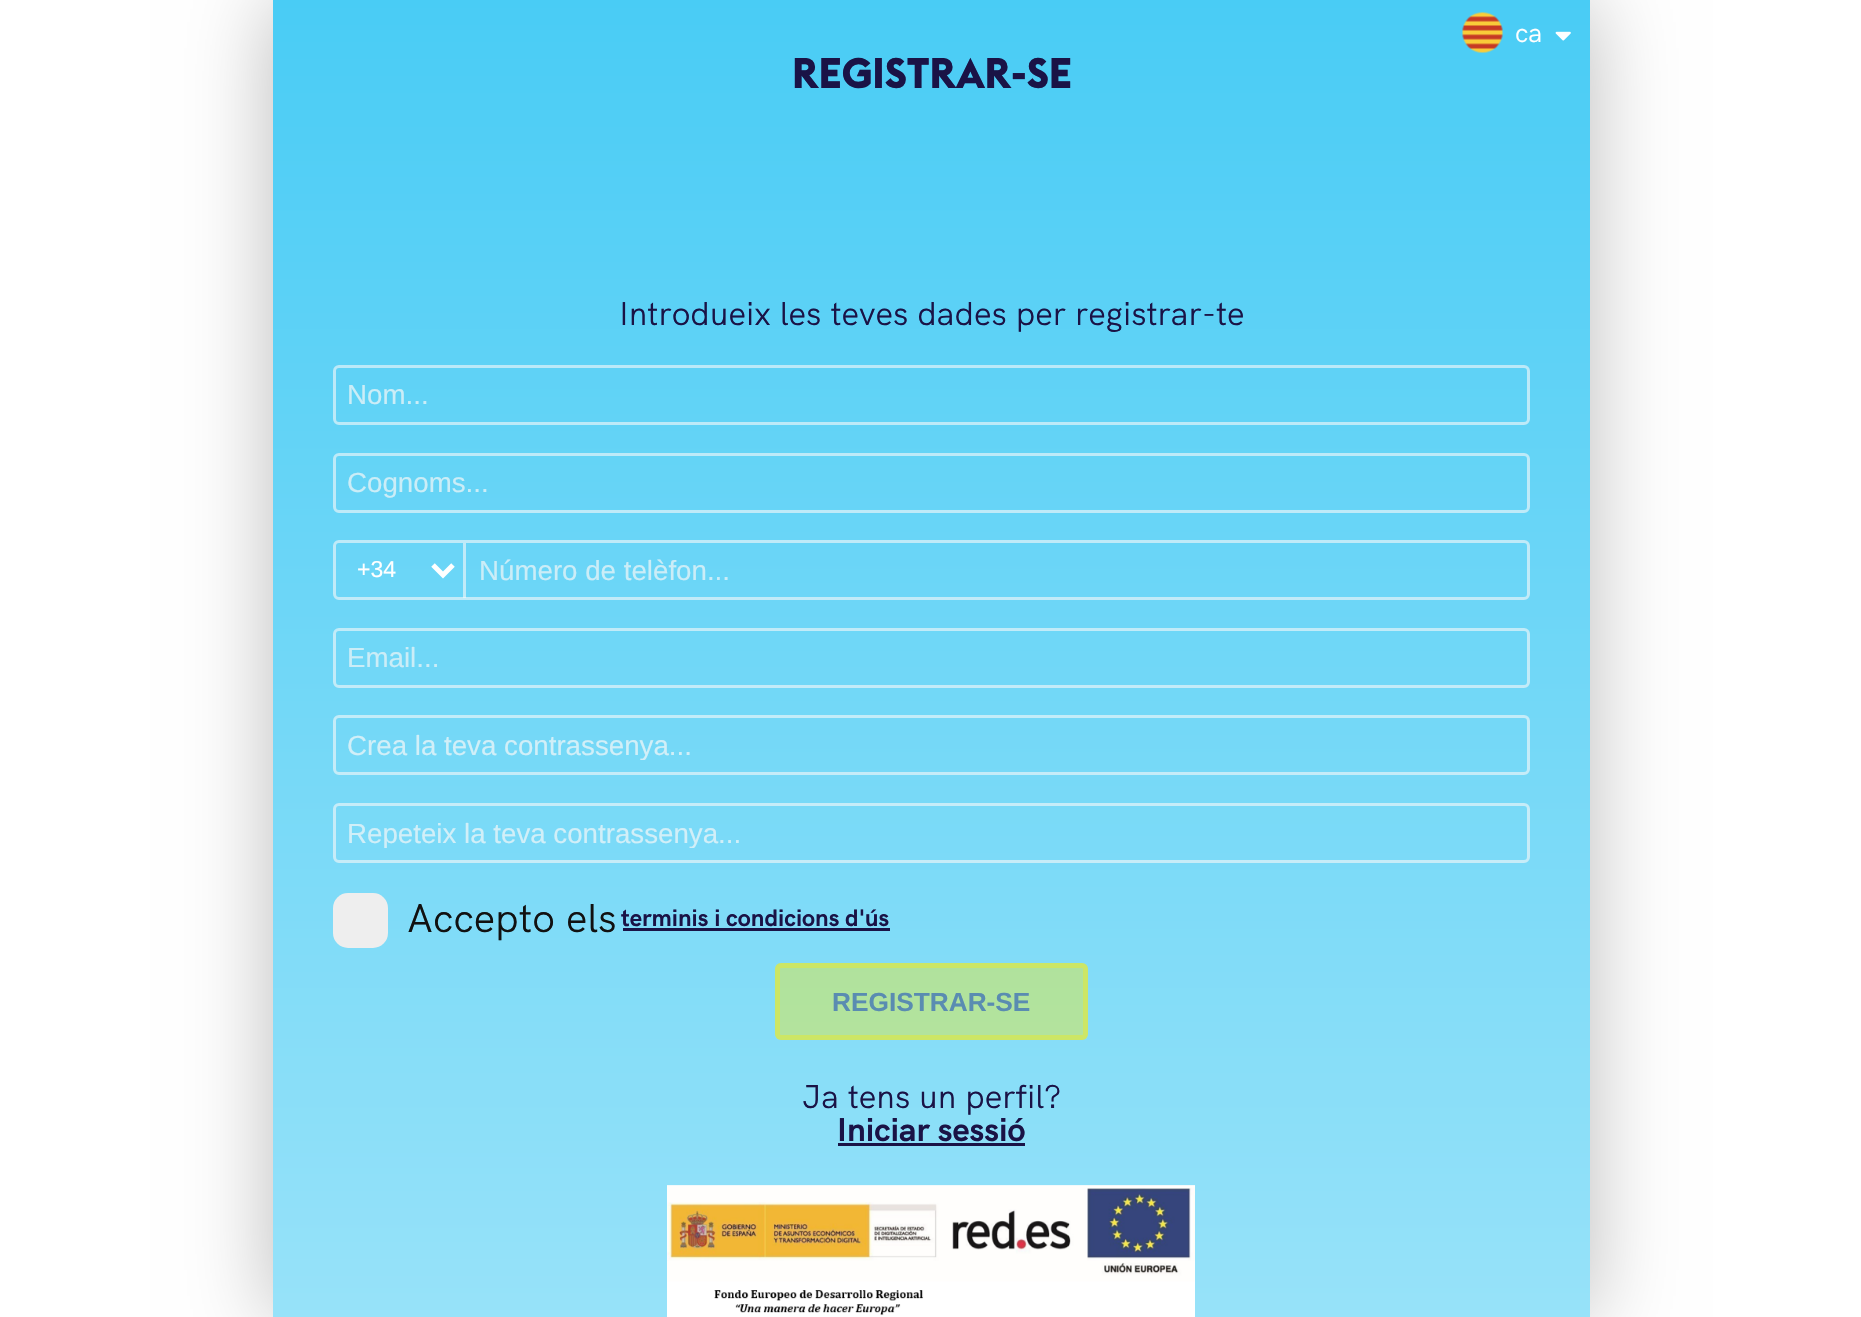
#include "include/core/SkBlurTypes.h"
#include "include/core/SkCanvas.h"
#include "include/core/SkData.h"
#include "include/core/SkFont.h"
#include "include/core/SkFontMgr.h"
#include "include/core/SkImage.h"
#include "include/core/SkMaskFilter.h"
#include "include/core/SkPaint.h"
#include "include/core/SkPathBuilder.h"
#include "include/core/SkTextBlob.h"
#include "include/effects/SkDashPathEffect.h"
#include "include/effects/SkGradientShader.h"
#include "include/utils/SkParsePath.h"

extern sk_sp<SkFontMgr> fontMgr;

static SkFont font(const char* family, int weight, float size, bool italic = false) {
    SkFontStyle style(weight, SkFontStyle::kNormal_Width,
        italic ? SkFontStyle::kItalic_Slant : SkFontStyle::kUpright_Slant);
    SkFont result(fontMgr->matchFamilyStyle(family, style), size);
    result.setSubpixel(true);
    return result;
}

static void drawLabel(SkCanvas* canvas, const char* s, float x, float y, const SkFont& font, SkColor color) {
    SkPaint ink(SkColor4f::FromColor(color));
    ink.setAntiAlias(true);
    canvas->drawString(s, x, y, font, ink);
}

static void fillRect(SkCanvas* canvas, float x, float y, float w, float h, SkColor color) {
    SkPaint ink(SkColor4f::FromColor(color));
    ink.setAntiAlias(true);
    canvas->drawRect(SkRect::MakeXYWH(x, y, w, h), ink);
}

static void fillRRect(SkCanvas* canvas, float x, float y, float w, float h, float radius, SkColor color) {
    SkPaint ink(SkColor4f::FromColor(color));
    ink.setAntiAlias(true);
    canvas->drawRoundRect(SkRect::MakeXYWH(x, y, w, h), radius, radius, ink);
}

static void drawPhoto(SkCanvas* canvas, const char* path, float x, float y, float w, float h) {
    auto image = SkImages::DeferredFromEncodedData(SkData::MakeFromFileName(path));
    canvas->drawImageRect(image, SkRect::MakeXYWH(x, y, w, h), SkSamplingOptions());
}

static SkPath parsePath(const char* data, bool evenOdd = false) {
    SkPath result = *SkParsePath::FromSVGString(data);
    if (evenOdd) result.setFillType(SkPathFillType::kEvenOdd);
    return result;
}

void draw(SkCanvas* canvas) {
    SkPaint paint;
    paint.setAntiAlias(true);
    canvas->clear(0xFFFFFFFF);
    paint.setColor(0xFFBBBBBB);
    paint.setMaskFilter(SkMaskFilter::MakeBlur(kNormal_SkBlurStyle, 41));
    canvas->drawRect(SkRect::MakeXYWH(273, 0, 1317, 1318), paint);
    paint.setMaskFilter(nullptr);
    {
        const SkColor colors[] = {0xFF49CCF5, 0xFF97E2F9};
        const float stops[] = {0, 1};
        const SkPoint ends[] = {{931, 0}, {931, 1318}};
        paint.setShader(SkGradientShader::MakeLinear(ends, colors, stops, 2, SkTileMode::kClamp));
        paint.setAlpha(255);
    }
    canvas->drawRect(SkRect::MakeXYWH(273, 0, 1317, 1317), paint);
    drawPhoto(canvas, "assets/img1.png", 1462, 12, 41, 41);
    SkFont font1 = font("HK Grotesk", 400, 26.25f);
    drawLabel(canvas, "ca", 1515, 42, font1, 0xFFFFFFFF);
    drawPhoto(canvas, "assets/img2.png", 1555, 31, 16, 10);
    SkFont font2 = font("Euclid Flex", 700, 42.25f);
    drawLabel(canvas, "REGISTRAR-SE", 792, 88, font2, 0xFF1A1346);
    SkFont font3 = font("HK Grotesk", 400, 32.9f);
    drawLabel(canvas, "Introdueix les teves dades per registrar-te", 619, 325, font3, 0xFF1A1346);
    paint.setStroke(true);
    paint.setStrokeWidth(3);
    paint.setShader(nullptr);
    paint.setColor(0x99F8F8F8);
    canvas->drawRoundRect(SkRect::MakeXYWH(334.5f, 366.5f, 1194, 57), 4.5f, 4.5f, paint);
    SkFont font4 = font("Liberation Sans", 400, 27.7f);
    drawLabel(canvas, "Nom...", 347, 404, font4, 0xFFCBEDF7);
    canvas->drawRoundRect(SkRect::MakeXYWH(334.5f, 454.5f, 1194, 57), 4.5f, 4.5f, paint);
    drawLabel(canvas, "Cognoms...", 347, 492, font4, 0xFFCBEDF7);
    canvas->drawRoundRect(SkRect::MakeXYWH(334.5f, 541.5f, 1194, 57), 4.5f, 4.5f, paint);
    paint.setStrokeWidth(5);
    paint.setColor(0xFFFFFFFF);
    canvas->drawPath(parsePath("M433 565L443 575L453 565"), paint);
    SkFont font5 = font("Liberation Sans", 400, 23);
    drawLabel(canvas, "+34", 357, 577, font5, 0xFFFFFFFF);
    fillRect(canvas, 463, 543, 3, 55, 0x99F8F8F8);
    drawLabel(canvas, "Número de telèfon...", 479, 580, font4, 0xFFCBEDF7);
    paint.setStrokeWidth(3);
    paint.setColor(0x99F8F8F8);
    canvas->drawRoundRect(SkRect::MakeXYWH(334.5f, 629.5f, 1194, 57), 4.5f, 4.5f, paint);
    drawLabel(canvas, "Email...", 347, 667, font4, 0xFFCBEDF7);
    canvas->drawRoundRect(SkRect::MakeXYWH(334.5f, 716.5f, 1194, 57), 4.5f, 4.5f, paint);
    canvas->save();
    canvas->clipRect(SkRect::MakeXYWH(348, 730, 1167, 30));
    drawLabel(canvas, "Crea la teva contrassenya...", 347, 755, font4, 0xFFD1EFF8);
    canvas->restore();
    canvas->drawRoundRect(SkRect::MakeXYWH(334.5f, 804.5f, 1194, 57), 4.5f, 4.5f, paint);
    canvas->save();
    canvas->clipRect(SkRect::MakeXYWH(348, 818, 1167, 30));
    drawLabel(canvas, "Repeteix la teva contrassenya...", 347, 843, font4, 0xFFD1EFF8);
    canvas->restore();
    fillRRect(canvas, 333, 893, 55, 55, 15, 0xFFEEEEEE);
    SkFont font6 = font("HK Grotesk", 400, 40);
    drawLabel(canvas, "Accepto els", 407, 932, font6, 0xFF111111);
    SkFont font7 = font("HK Grotesk", 700, 23.75f);
    drawLabel(canvas, "terminis i condicions d'ús", 621, 926, font7, 0xFF1A1346);
    fillRect(canvas, 623, 928, 267, 3, 0xFF1A1346);
    fillRRect(canvas, 775, 963, 313, 77, 6, 0x66F6EB14);
    paint.setStrokeWidth(5);
    paint.setColor(0x66F6EB14);
    canvas->drawRoundRect(SkRect::MakeXYWH(777.5f, 965.5f, 308, 72), 3.5f, 3.5f, paint);
    SkFont font8 = font("Liberation Sans", 700, 26.25f);
    drawLabel(canvas, "REGISTRAR-SE", 832, 1011, font8, 0xFF5A8CB1);
    drawLabel(canvas, "Ja tens un perfil?", 802, 1108, font3, 0xFF1A1346);
    SkFont font9 = font("HK Grotesk", 700, 32.9f);
    drawLabel(canvas, "Iniciar sessió", 837, 1141, font9, 0xFF1A1346);
    fillRect(canvas, 838, 1143, 187, 3, 0xFF1A1346);
    drawPhoto(canvas, "assets/img3.png", 667, 1185, 528, 132);
}
